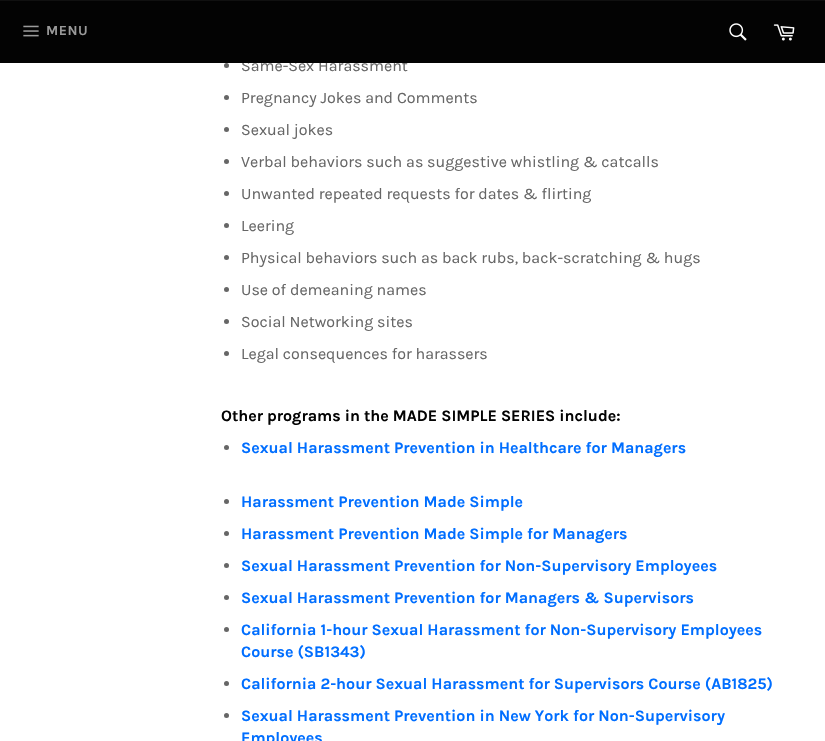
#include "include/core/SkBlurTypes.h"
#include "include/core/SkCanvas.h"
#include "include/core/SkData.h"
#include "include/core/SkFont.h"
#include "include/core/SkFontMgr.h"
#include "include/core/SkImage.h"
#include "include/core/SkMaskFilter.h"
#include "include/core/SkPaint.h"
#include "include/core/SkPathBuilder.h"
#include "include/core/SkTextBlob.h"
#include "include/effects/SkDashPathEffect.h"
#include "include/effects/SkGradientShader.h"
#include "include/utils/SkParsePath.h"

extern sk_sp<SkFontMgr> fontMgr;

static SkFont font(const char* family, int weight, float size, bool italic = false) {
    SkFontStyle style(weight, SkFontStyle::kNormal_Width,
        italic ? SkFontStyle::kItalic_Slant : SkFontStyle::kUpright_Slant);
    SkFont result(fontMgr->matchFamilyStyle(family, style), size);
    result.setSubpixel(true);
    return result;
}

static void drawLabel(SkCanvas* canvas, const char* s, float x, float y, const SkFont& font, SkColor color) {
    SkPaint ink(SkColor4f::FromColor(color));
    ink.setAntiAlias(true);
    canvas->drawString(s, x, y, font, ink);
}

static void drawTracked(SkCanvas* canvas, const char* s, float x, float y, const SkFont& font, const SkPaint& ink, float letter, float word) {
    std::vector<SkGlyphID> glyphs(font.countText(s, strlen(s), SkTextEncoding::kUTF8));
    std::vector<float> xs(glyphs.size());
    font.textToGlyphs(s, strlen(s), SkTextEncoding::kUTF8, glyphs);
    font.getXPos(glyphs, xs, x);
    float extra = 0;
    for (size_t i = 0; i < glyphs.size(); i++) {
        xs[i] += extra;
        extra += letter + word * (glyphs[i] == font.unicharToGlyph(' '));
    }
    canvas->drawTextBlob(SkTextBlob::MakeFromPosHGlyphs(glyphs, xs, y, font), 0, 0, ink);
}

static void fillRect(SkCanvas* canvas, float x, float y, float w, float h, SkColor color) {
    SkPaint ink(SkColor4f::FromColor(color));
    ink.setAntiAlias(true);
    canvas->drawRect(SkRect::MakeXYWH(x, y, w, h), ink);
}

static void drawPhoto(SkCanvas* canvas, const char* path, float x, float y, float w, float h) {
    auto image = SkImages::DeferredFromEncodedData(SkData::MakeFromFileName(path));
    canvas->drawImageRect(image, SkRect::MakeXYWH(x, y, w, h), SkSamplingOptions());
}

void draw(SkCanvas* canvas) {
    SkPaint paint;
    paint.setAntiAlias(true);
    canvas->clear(0xFFFFFFFF);
    SkFont font1 = font("Karla", 400, 16);
    drawLabel(canvas, "Same-Sex Harassment", 241, 71, font1, 0xFF666666);
    fillRect(canvas, 0, 1, 825, 62, 0xFF030303);
    fillRect(canvas, 0, 0, 825, 1, 0xFF101010);
    drawPhoto(canvas, "assets/img1.png", 23, 25, 16, 12);
    SkFont font2 = font("Karla", 700, 14);
    paint.setColor(0xFF9A9A9A);
    drawTracked(canvas, "MENU", 46, 35, font2, paint, 0.5f, 0);
    drawPhoto(canvas, "assets/img2.png", 729, 23, 18, 18);
    drawPhoto(canvas, "assets/img3.png", 773, 24, 22, 17);
    paint.setColor(0xFF666666);
    canvas->drawCircle(226.5f, 65.5f, 2.5f, paint);
    canvas->drawCircle(226.5f, 97.5f, 2.5f, paint);
    drawLabel(canvas, "Pregnancy Jokes and Comments", 241, 103, font1, 0xFF666666);
    canvas->drawCircle(226.5f, 129.5f, 2.5f, paint);
    drawLabel(canvas, "Sexual jokes", 241, 135, font1, 0xFF666666);
    canvas->drawCircle(226.5f, 161.5f, 2.5f, paint);
    drawLabel(canvas, "Verbal behaviors such as suggestive whistling & catcalls", 241, 167, font1, 0xFF666666);
    canvas->drawCircle(226.5f, 193.5f, 2.5f, paint);
    drawLabel(canvas, "Unwanted repeated requests for dates & flirting", 241, 199, font1, 0xFF666666);
    canvas->drawCircle(226.5f, 225.5f, 2.5f, paint);
    drawLabel(canvas, "Leering", 241, 231, font1, 0xFF666666);
    canvas->drawCircle(226.5f, 257.5f, 2.5f, paint);
    drawLabel(canvas, "Physical behaviors such as back rubs, back-scratching & hugs", 241, 263, font1, 0xFF666666);
    canvas->drawCircle(226.5f, 289.5f, 2.5f, paint);
    drawLabel(canvas, "Use of demeaning names", 241, 295, font1, 0xFF666666);
    canvas->drawCircle(226.5f, 321.5f, 2.5f, paint);
    drawLabel(canvas, "Social Networking sites", 241, 327, font1, 0xFF666666);
    canvas->drawCircle(226.5f, 353.5f, 2.5f, paint);
    drawLabel(canvas, "Legal consequences for harassers", 241, 359, font1, 0xFF666666);
    SkFont font3 = font("Karla", 700, 16);
    drawLabel(canvas, "Other programs in the MADE SIMPLE SERIES include:", 221, 421, font3, 0xFF030303);
    canvas->drawCircle(226.5f, 447.5f, 2.5f, paint);
    drawLabel(canvas, "Sexual Harassment Prevention in Healthcare for Managers", 241, 453, font3, 0xFF006EFF);
    canvas->drawCircle(226.5f, 501.5f, 2.5f, paint);
    drawLabel(canvas, "Harassment Prevention Made Simple", 241, 507, font3, 0xFF006EFF);
    canvas->drawCircle(226.5f, 533.5f, 2.5f, paint);
    drawLabel(canvas, "Harassment Prevention Made Simple for Managers", 241, 539, font3, 0xFF006EFF);
    canvas->drawCircle(226.5f, 565.5f, 2.5f, paint);
    drawLabel(canvas, "Sexual Harassment Prevention for Non-Supervisory Employees", 241, 571, font3, 0xFF006EFF);
    canvas->drawCircle(226.5f, 597.5f, 2.5f, paint);
    drawLabel(canvas, "Sexual Harassment Prevention for Managers & Supervisors", 241, 603, font3, 0xFF006EFF);
    canvas->drawCircle(226.5f, 629.5f, 2.5f, paint);
    drawLabel(canvas, "California 1-hour Sexual Harassment for Non-Supervisory Employees", 241, 635, font3, 0xFF006EFF);
    drawLabel(canvas, "Course (SB1343)", 241, 657, font3, 0xFF006EFF);
    canvas->drawCircle(226.5f, 683.5f, 2.5f, paint);
    drawLabel(canvas, "California 2-hour Sexual Harassment for Supervisors Course (AB1825)", 241, 689, font3, 0xFF006EFF);
    canvas->drawCircle(226.5f, 715.5f, 2.5f, paint);
    drawLabel(canvas, "Sexual Harassment Prevention in New York for Non-Supervisory", 241, 721, font3, 0xFF006EFF);
    drawLabel(canvas, "Employees", 241, 743, font3, 0xFF006EFF);
}
